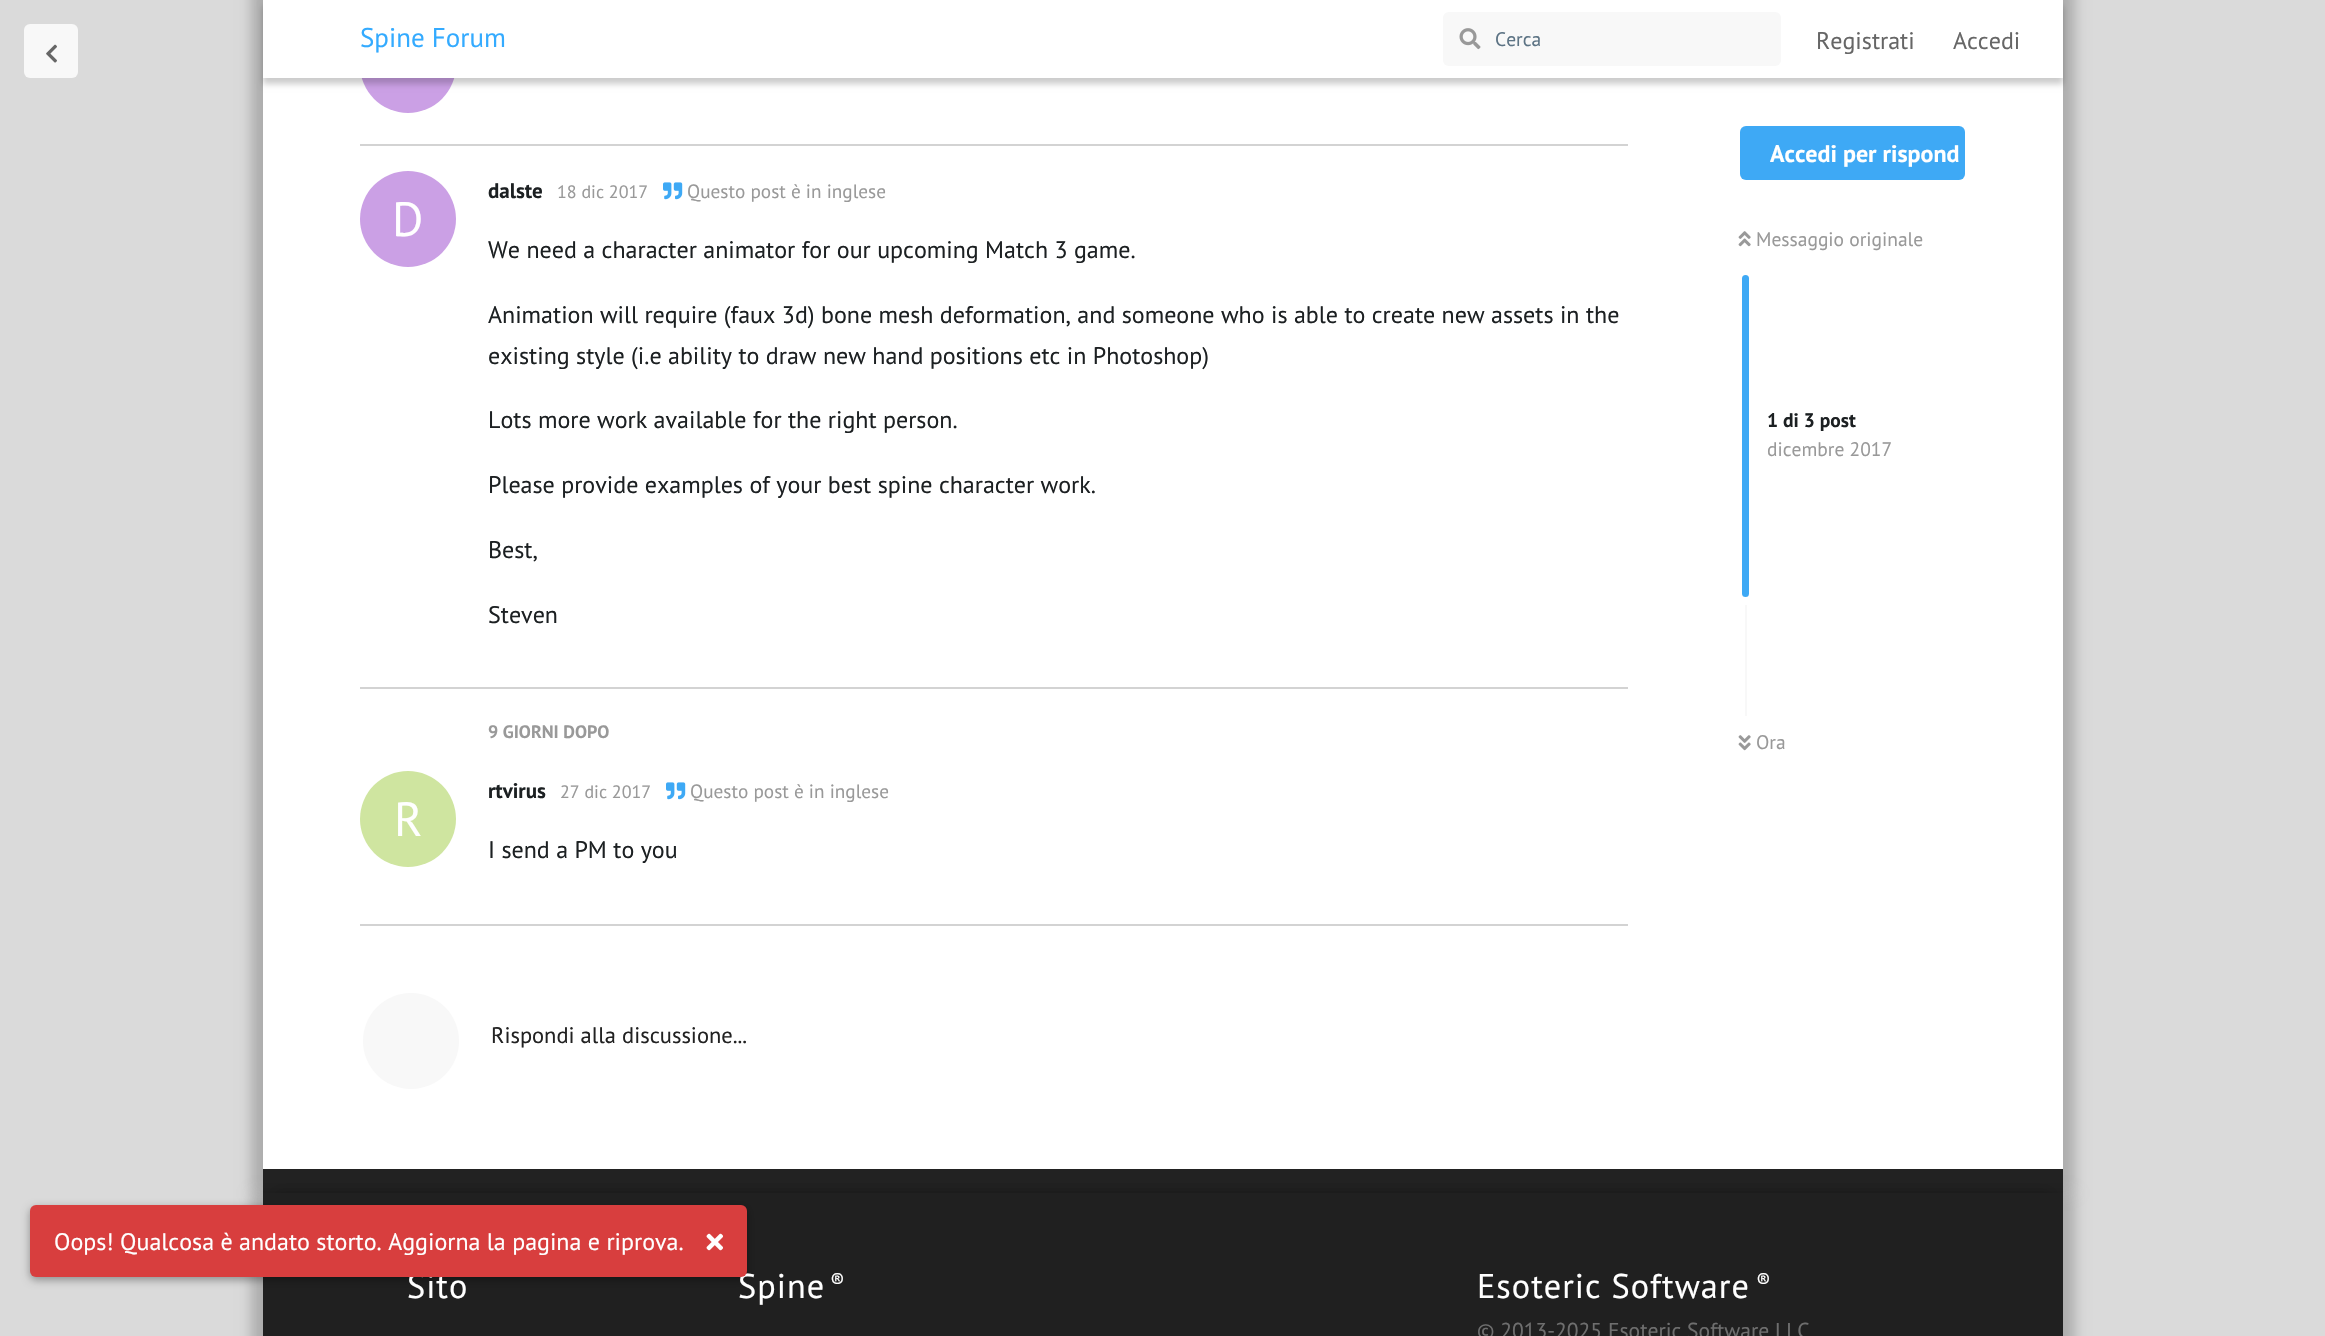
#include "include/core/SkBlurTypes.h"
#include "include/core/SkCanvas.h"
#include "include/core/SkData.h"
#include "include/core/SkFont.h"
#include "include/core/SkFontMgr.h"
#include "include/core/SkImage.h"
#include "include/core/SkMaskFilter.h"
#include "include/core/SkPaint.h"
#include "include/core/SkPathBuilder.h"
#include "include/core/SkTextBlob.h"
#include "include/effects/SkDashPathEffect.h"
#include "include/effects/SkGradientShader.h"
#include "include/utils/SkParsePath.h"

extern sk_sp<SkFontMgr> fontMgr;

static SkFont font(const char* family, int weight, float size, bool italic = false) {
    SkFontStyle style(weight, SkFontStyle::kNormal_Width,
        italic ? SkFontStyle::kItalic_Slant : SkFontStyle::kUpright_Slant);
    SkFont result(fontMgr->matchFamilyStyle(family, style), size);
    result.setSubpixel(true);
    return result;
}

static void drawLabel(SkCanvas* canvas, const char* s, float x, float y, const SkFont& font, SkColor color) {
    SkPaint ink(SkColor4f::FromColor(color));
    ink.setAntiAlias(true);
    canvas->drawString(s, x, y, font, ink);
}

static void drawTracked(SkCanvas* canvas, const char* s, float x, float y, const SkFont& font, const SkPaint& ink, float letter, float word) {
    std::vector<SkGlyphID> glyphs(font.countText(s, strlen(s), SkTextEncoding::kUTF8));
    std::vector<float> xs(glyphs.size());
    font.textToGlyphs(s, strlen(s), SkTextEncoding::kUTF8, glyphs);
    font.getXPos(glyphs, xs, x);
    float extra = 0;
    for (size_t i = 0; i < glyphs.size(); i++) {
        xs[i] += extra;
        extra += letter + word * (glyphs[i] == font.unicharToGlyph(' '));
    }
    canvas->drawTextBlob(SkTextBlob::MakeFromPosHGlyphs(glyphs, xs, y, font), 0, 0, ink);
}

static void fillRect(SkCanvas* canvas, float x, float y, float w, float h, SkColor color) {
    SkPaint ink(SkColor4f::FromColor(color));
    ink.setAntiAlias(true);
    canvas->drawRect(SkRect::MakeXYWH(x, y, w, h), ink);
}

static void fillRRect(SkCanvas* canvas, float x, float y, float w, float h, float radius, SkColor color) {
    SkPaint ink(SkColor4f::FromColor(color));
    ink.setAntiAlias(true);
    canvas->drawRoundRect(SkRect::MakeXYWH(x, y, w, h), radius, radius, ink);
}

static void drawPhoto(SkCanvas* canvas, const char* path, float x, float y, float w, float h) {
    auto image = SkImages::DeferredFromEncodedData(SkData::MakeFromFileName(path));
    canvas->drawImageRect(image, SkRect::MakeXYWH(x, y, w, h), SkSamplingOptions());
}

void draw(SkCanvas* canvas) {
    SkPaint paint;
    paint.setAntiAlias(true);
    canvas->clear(0xFFDADADA);
    paint.setColor(0x33000000);
    paint.setMaskFilter(SkMaskFilter::MakeBlur(kNormal_SkBlurStyle, 6));
    canvas->drawRect(SkRect::MakeXYWH(251, -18, 1800, 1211), paint);
    paint.setMaskFilter(nullptr);
    paint.setMaskFilter(SkMaskFilter::MakeBlur(kNormal_SkBlurStyle, 6));
    canvas->drawRect(SkRect::MakeXYWH(275, -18, 1800, 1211), paint);
    paint.setMaskFilter(nullptr);
    fillRect(canvas, 263, 78, 1800, 1091, 0xFFFFFFFF);
    fillRRect(canvas, 24, 24, 54, 54, 6, 0xFFF8F8F8);
    drawPhoto(canvas, "assets/img1.png", 46, 44, 11, 19);
    paint.setColor(0xFFCBA0E5);
    canvas->drawCircle(408, 65, 48, paint);
    paint.setColor(0x33000000);
    paint.setMaskFilter(SkMaskFilter::MakeBlur(kNormal_SkBlurStyle, 3));
    canvas->drawRect(SkRect::MakeXYWH(263, 6, 1800, 78), paint);
    paint.setMaskFilter(nullptr);
    fillRect(canvas, 263, 0, 1800, 78, 0xFFFFFFFF);
    SkFont font1 = font("PT Sans", 400, 27);
    drawLabel(canvas, "Spine Forum", 360, 47, font1, 0xFF34ABFF);
    fillRRect(canvas, 1443, 12, 338, 54, 6, 0xFFF8F8F8);
    drawPhoto(canvas, "assets/img2.png", 1459, 28, 22, 22);
    SkFont font2 = font("PT Sans", 400, 19.5f);
    drawLabel(canvas, "Cerca", 1495, 46, font2, 0xFF5C7384);
    SkFont font3 = font("PT Sans", 400, 24);
    drawLabel(canvas, "Registrati", 1816, 49, font3, 0xFF666666);
    drawLabel(canvas, "Accedi", 1953, 49, font3, 0xFF666666);
    fillRect(canvas, 360, 144, 1268, 2, 0xFFD3D3D3);
    fillRect(canvas, 360, 687, 1268, 2, 0xFFD3D3D3);
    SkFont font4 = font("PT Sans", 700, 21);
    drawLabel(canvas, "dalste", 488, 198, font4, 0xFF1C2022);
    paint.setColor(0xFFCBA0E5);
    canvas->drawCircle(408, 219, 48, paint);
    SkFont font5 = font("PT Sans", 400, 48);
    drawLabel(canvas, "D", 392, 236, font5, 0xFFFFFFFF);
    SkFont font6 = font("PT Sans", 400, 18);
    drawLabel(canvas, "18 dic 2017", 557, 198, font6, 0xFF999999);
    drawPhoto(canvas, "assets/img3.png", 663, 182, 20, 18);
    SkFont font7 = font("PT Sans", 400, 19.25f);
    drawLabel(canvas, "Questo post è in inglese", 687, 198, font7, 0xFF999999);
    drawLabel(canvas, "We need a character animator for our upcoming Match 3 game.", 488, 258, font3, 0xFF1C2022);
    drawLabel(canvas, "Animation will require (faux 3d) bone mesh deformation, and someone who is able to create new assets in the", 488, 323, font3, 0xFF1C2022);
    drawLabel(canvas, "existing style (i.e ability to draw new hand positions etc in Photoshop)", 488, 364, font3, 0xFF1C2022);
    drawLabel(canvas, "Lots more work available for the right person.", 488, 428, font3, 0xFF1C2022);
    drawLabel(canvas, "Please provide examples of your best spine character work.", 488, 493, font3, 0xFF1C2022);
    drawLabel(canvas, "Best,", 488, 558, font3, 0xFF1C2022);
    drawLabel(canvas, "Steven", 488, 623, font3, 0xFF1C2022);
    fillRect(canvas, 360, 924, 1268, 2, 0xFFD3D3D3);
    SkFont font8 = font("PT Sans", 700, 18);
    drawLabel(canvas, "9 GIORNI DOPO", 488, 738, font8, 0xFF999999);
    drawLabel(canvas, "rtvirus", 488, 798, font4, 0xFF1C2022);
    paint.setColor(0xFFCFE5A0);
    canvas->drawCircle(408, 819, 48, paint);
    drawLabel(canvas, "R", 394, 836, font5, 0xFFFFFFFF);
    drawLabel(canvas, "27 dic 2017", 560, 798, font6, 0xFF999999);
    drawPhoto(canvas, "assets/img3.png", 666, 782, 20, 18);
    drawLabel(canvas, "Questo post è in inglese", 690, 798, font7, 0xFF999999);
    drawLabel(canvas, "I send a PM to you", 488, 858, font3, 0xFF1C2022);
    paint.setColor(0xFFF8F8F8);
    canvas->drawCircle(411, 1041, 48, paint);
    SkFont font9 = font("PT Sans", 400, 22.5f);
    drawLabel(canvas, "Rispondi alla discussione...", 491, 1043, font9, 0xFF222222);
    fillRRect(canvas, 1740, 126, 225, 54, 6, 0xFF3EA9F5);
    SkFont font10 = font("PT Sans", 700, 24);
    drawLabel(canvas, "Accedi per rispond", 1770, 162, font10, 0xFFFFFFFF);
    drawPhoto(canvas, "assets/img4.png", 1738, 231, 13, 16);
    drawLabel(canvas, "Messaggio originale", 1756, 246, font2, 0xFF999999);
    fillRRect(canvas, 1742, 275, 7, 322, 3.5f, 0xFF3EA9F5);
    SkFont font11 = font("PT Sans", 700, 19.5f);
    drawLabel(canvas, "1 di 3 post", 1767, 427, font11, 0xFF1C2022);
    drawLabel(canvas, "dicembre 2017", 1767, 456, font2, 0xFF999999);
    fillRect(canvas, 1745, 605, 2, 111, 0xFFF8F8F8);
    drawPhoto(canvas, "assets/img5.png", 1738, 735, 13, 16);
    drawLabel(canvas, "Ora", 1756, 749, font2, 0xFF999999);
    fillRect(canvas, 263, 1169, 1800, 24, 0xFF222222);
    paint.setColor(0x33000000);
    paint.setMaskFilter(SkMaskFilter::MakeBlur(kNormal_SkBlurStyle, 6));
    canvas->drawRect(SkRect::MakeXYWH(251, 1193, 1800, 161), paint);
    paint.setMaskFilter(nullptr);
    paint.setMaskFilter(SkMaskFilter::MakeBlur(kNormal_SkBlurStyle, 6));
    canvas->drawRect(SkRect::MakeXYWH(275, 1193, 1800, 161), paint);
    paint.setMaskFilter(nullptr);
    fillRect(canvas, 263, 1193, 1800, 143, 0xFF202020);
    paint.setColor(0x59000000);
    paint.setMaskFilter(SkMaskFilter::MakeBlur(kNormal_SkBlurStyle, 4.5f));
    canvas->drawRoundRect(SkRect::MakeXYWH(30, 1208, 717, 72), 6, 6, paint);
    paint.setMaskFilter(nullptr);
    SkFont font12 = font("PT Sans", 400, 34.25f);
    paint.setColor(0xFFFFFFFF);
    drawTracked(canvas, "Sito", 407, 1298, font12, paint, 1, 0);
    drawTracked(canvas, "Spine", 738, 1298, font12, paint, 1, 0);
    fillRRect(canvas, 30, 1205, 717, 72, 6, 0xFFD83E3E);
    drawLabel(canvas, "Oops! Qualcosa è andato storto. Aggiorna la pagina e riprova.", 54, 1250, font3, 0xFFFFFFFF);
    drawPhoto(canvas, "assets/img6.png", 706, 1233, 17, 18);
    SkFont font13 = font("PT Sans", 400, 21);
    drawTracked(canvas, "®", 830, 1288, font13, paint, 1, 0);
    drawTracked(canvas, "Esoteric Software", 1477, 1298, font12, paint, 1, 0);
    drawTracked(canvas, "®", 1756, 1288, font13, paint, 1, 0);
    SkFont font14 = font("PT Sans", 400, 21.6f);
    drawLabel(canvas, "© 2013-2025 Esoteric Software LLC", 1477, 1338, font14, 0xFF6E6E6E);
}
